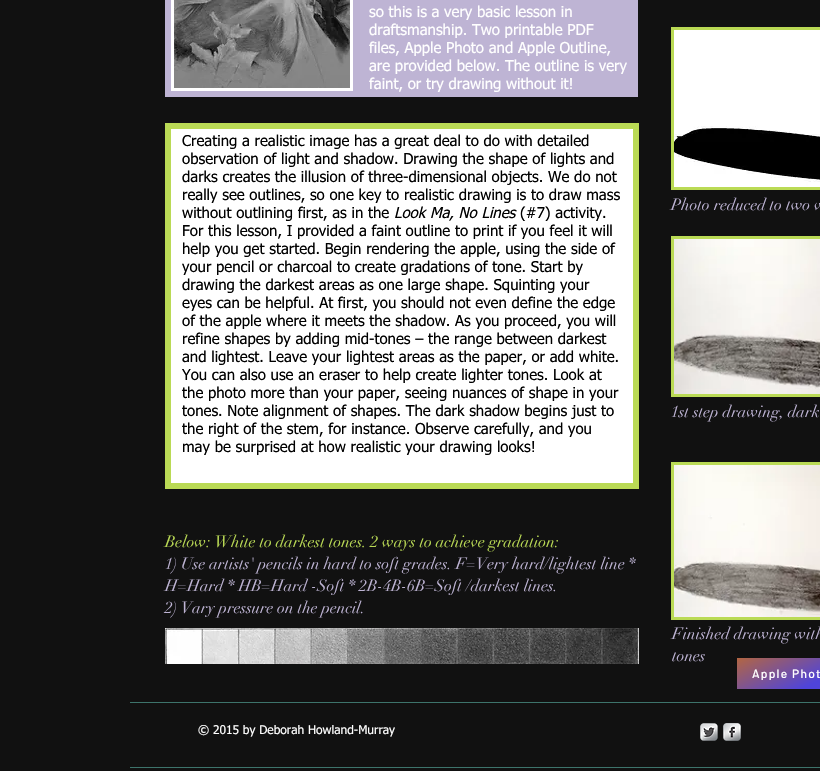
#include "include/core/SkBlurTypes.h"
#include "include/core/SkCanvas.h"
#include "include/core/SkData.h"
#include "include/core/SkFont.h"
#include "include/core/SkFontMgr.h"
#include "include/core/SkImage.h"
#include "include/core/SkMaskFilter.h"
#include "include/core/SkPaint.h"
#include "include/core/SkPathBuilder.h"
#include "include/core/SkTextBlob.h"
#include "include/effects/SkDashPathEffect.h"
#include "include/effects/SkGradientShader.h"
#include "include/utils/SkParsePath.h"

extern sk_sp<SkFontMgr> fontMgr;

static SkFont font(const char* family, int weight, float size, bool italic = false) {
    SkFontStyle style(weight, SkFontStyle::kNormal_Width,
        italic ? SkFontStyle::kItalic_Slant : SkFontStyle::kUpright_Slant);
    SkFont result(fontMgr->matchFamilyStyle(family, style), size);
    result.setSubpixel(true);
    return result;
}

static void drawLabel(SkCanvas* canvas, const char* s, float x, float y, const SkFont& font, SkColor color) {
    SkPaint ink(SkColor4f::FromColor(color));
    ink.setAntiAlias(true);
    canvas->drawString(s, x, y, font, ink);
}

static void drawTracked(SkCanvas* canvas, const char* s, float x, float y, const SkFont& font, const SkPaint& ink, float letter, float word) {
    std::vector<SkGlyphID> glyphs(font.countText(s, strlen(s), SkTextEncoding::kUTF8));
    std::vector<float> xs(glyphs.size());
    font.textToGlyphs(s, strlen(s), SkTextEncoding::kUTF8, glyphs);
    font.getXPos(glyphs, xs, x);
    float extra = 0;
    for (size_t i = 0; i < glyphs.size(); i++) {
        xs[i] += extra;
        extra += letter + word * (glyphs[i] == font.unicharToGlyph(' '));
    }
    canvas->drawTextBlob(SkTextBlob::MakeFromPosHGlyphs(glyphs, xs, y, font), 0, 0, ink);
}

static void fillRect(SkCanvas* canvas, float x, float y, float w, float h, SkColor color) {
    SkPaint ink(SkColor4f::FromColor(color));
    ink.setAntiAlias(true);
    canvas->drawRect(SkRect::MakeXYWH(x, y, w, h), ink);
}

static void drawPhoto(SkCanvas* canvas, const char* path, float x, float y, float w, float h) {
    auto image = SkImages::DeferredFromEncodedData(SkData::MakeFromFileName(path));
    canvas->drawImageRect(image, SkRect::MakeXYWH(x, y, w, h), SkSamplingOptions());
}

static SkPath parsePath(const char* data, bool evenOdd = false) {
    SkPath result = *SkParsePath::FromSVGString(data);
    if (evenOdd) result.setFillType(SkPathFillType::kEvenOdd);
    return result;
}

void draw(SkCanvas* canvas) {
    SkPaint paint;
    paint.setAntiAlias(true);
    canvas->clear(0xFF111111);
    paint.setColor(0xFFFFFFFF);
    canvas->drawRect(SkRect::MakeXYWH(168, -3, 188, 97), paint);
    paint.setStroke(true);
    paint.setStrokeWidth(6);
    paint.setColor(0xFFBEB4D4);
    canvas->drawRect(SkRect::MakeXYWH(168, -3, 188, 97), paint);
    drawPhoto(canvas, "assets/img1.png", 174, 0, 176, 88);
    fillRect(canvas, 359, 0, 279, 97, 0xFFBEB4D4);
    SkFont font1 = font("tahoma", 400, 15);
    drawLabel(canvas, "so this is a very basic lesson in", 369, 17, font1, 0xFFFFFFFF);
    drawLabel(canvas, "draftsmanship. Two printable PDF", 369, 35, font1, 0xFFFFFFFF);
    drawLabel(canvas, "files, Apple Photo and Apple Outline,", 369, 53, font1, 0xFFFFFFFF);
    drawLabel(canvas, "are provided below. The outline is very", 369, 71, font1, 0xFFFFFFFF);
    drawLabel(canvas, "faint, or try drawing without it!", 369, 89, font1, 0xFFFFFFFF);
    fillRect(canvas, 171, 129, 462, 354, 0xFFFFFFFF);
    paint.setColor(0xFFBADA55);
    canvas->drawPath(parsePath("M636 126V486H168V126Z"), paint);
    drawLabel(canvas, "Creating a realistic image has a great deal to do with detailed", 182, 146, font1, 0xFF000000);
    drawLabel(canvas, "observation of light and shadow. Drawing the shape of lights and", 182, 164, font1, 0xFF000000);
    drawLabel(canvas, "darks creates the illusion of three-dimensional objects. We do not", 182, 182, font1, 0xFF000000);
    drawLabel(canvas, "really see outlines, so one key to realistic drawing is to draw mass", 182, 200, font1, 0xFF000000);
    drawLabel(canvas, "without outlining first, as in the", 182, 218, font1, 0xFF000000);
    SkFont font2 = font("tahoma", 400, 15, true);
    drawLabel(canvas, "Look Ma, No Lines", 394, 218, font2, 0xFF000000);
    drawLabel(canvas, "(#7) activity.", 520, 218, font1, 0xFF000000);
    drawLabel(canvas, "For this lesson, I provided a faint outline to print if you feel it will", 182, 236, font1, 0xFF000000);
    drawLabel(canvas, "help you get started. Begin rendering the apple, using the side of", 182, 254, font1, 0xFF000000);
    drawLabel(canvas, "your pencil or charcoal to create gradations of tone. Start by", 182, 272, font1, 0xFF000000);
    drawLabel(canvas, "drawing the darkest areas as one large shape. Squinting your", 182, 290, font1, 0xFF000000);
    drawLabel(canvas, "eyes can be helpful. At first, you should not even define the edge", 182, 308, font1, 0xFF000000);
    drawLabel(canvas, "of the apple where it meets the shadow. As you proceed, you will", 182, 326, font1, 0xFF000000);
    drawLabel(canvas, "refine shapes by adding mid-tones – the range between darkest", 182, 344, font1, 0xFF000000);
    drawLabel(canvas, "and lightest. Leave your lightest areas as the paper, or add white.", 182, 362, font1, 0xFF000000);
    drawLabel(canvas, "You can also use an eraser to help create lighter tones. Look at", 182, 380, font1, 0xFF000000);
    drawLabel(canvas, "the photo more than your paper, seeing nuances of shape in your", 182, 398, font1, 0xFF000000);
    drawLabel(canvas, "tones. Note alignment of shapes. The dark shadow begins just to", 182, 416, font1, 0xFF000000);
    drawLabel(canvas, "the right of the stem, for instance. Observe carefully, and you", 182, 434, font1, 0xFF000000);
    drawLabel(canvas, "may be surprised at how realistic your drawing looks!", 182, 452, font1, 0xFF000000);
    fillRect(canvas, 671, 27, 149, 163, 0xFFBADA55);
    drawPhoto(canvas, "assets/img2.png", 674, 30, 146, 157);
    SkFont font3 = font("didot", 400, 16);
    drawLabel(canvas, "Photo reduced to two v", 671, 210, font3, 0xFFBEB4D4);
    fillRect(canvas, 671, 236, 149, 161, 0xFFBADA55);
    drawPhoto(canvas, "assets/img3.png", 674, 239, 146, 155);
    drawLabel(canvas, "1st step drawing, dark", 671, 417, font3, 0xFFBEB4D4);
    drawLabel(canvas, "Below: White to darkest tones. 2 ways to achieve gradation:", 165, 547, font3, 0xFFBADA55);
    drawLabel(canvas, "1) Use artists' pencils in hard to soft grades. F=Very hard/lightest line *", 165, 569, font3, 0xFFBEB4D4);
    drawLabel(canvas, "H=Hard * HB=Hard -Soft * 2B-4B-6B=Soft /darkest lines.", 165, 591, font3, 0xFFBEB4D4);
    drawLabel(canvas, "2) Vary pressure on the pencil.", 165, 613, font3, 0xFFBEB4D4);
    drawPhoto(canvas, "assets/img4.png", 165, 628, 474, 36);
    fillRect(canvas, 671, 462, 149, 158, 0xFFBADA55);
    drawPhoto(canvas, "assets/img5.png", 674, 465, 146, 152);
    drawLabel(canvas, "Finished drawing with", 672, 639, font3, 0xFFBEB4D4);
    drawLabel(canvas, "tones", 672, 661, font3, 0xFFBEB4D4);
    paint.setStroke(false);
    {
        const SkColor colors[] = {0xFF4F44DA, 0xFFB46640};
        const float stops[] = {0.26f, 1};
        const SkPoint ends[] = {{808, 708}, {774, 639}};
        paint.setShader(SkGradientShader::MakeLinear(ends, colors, stops, 2, SkTileMode::kClamp));
        paint.setAlpha(255);
    }
    canvas->drawRect(SkRect::MakeXYWH(737, 658, 83, 31), paint);
    canvas->save();
    canvas->clipRect(SkRect::MakeXYWH(752, 666, 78, 14));
    SkFont font4 = font("Barlow", 500, 12);
    paint.setShader(nullptr);
    paint.setColor(0xFFFFFFFF);
    drawTracked(canvas, "Apple Phot", 752, 678, font4, paint, 1.25f, 0);
    canvas->restore();
    fillRect(canvas, 130, 702, 690, 1, 0xFF3D746B);
    SkFont font5 = font("tahoma", 400, 12);
    drawLabel(canvas, "© 2015 by Deborah Howland-Murray", 198, 734, font5, 0xFFFFFFFF);
    drawPhoto(canvas, "assets/img6.png", 700, 723, 18, 18);
    drawPhoto(canvas, "assets/img7.png", 723, 723, 18, 18);
    fillRect(canvas, 130, 767, 690, 1, 0xFF3D746B);
}
